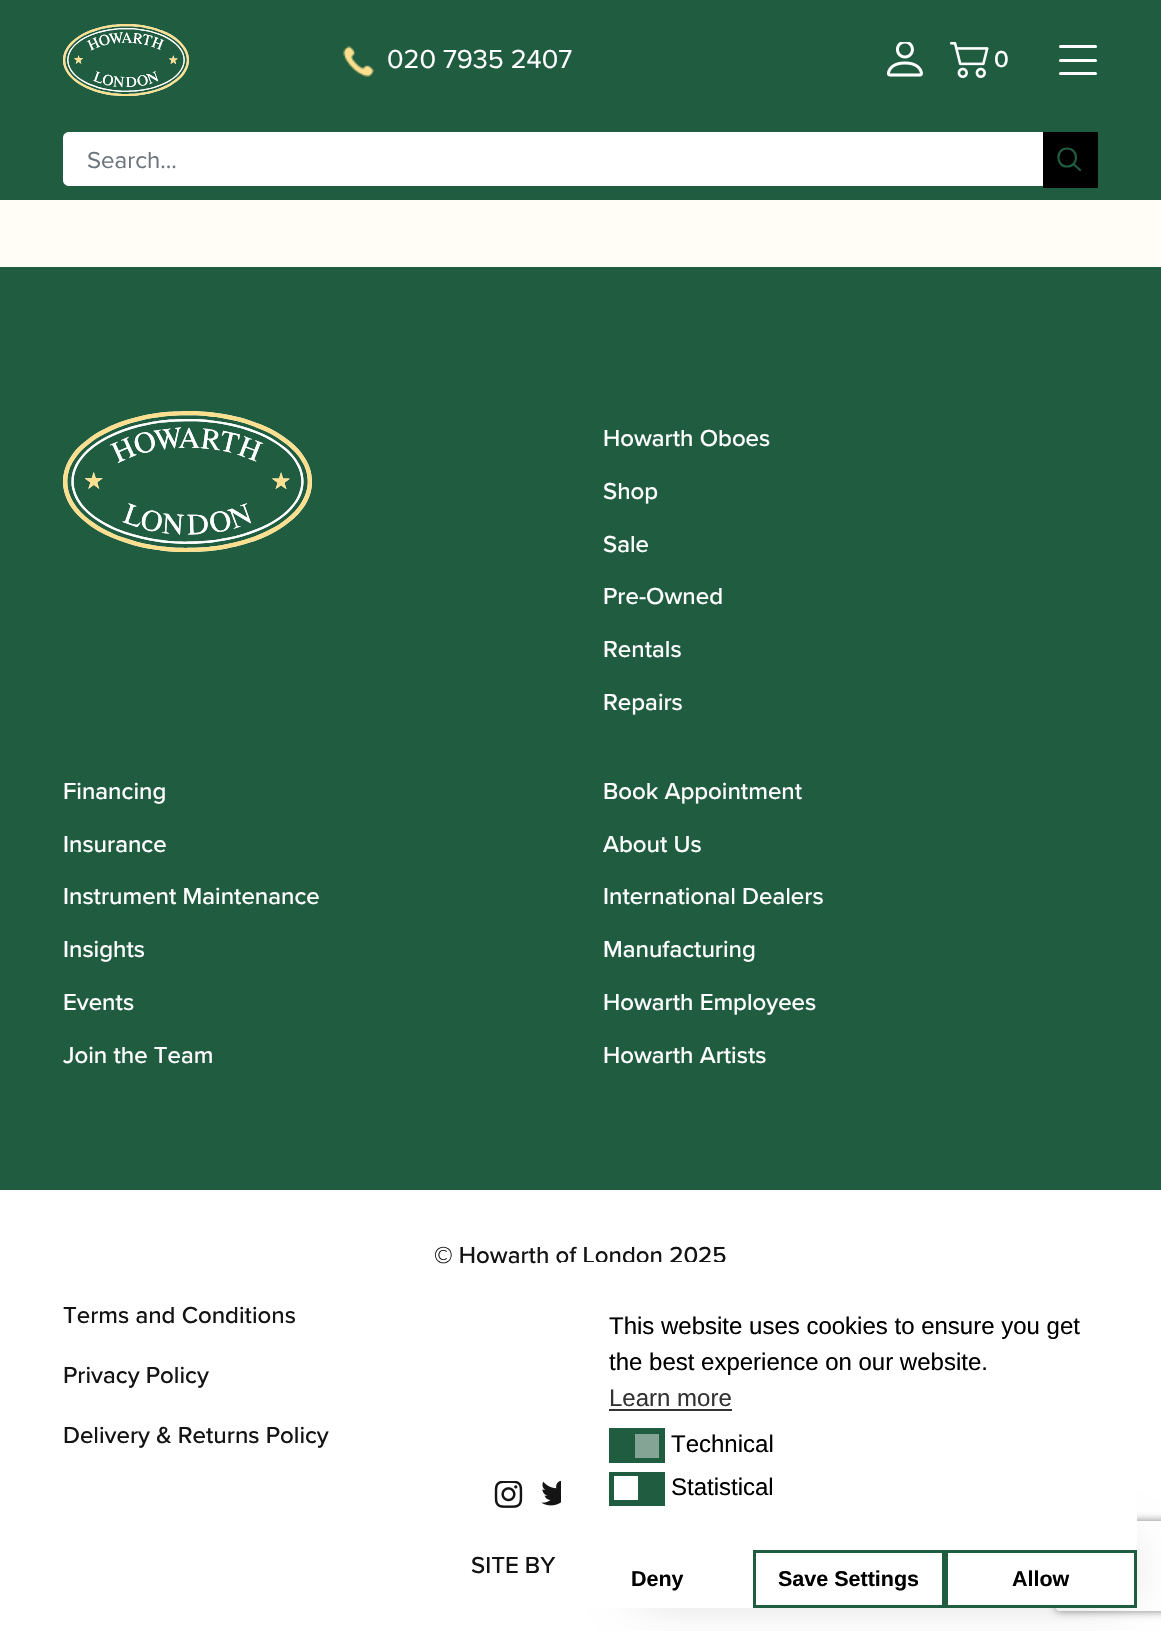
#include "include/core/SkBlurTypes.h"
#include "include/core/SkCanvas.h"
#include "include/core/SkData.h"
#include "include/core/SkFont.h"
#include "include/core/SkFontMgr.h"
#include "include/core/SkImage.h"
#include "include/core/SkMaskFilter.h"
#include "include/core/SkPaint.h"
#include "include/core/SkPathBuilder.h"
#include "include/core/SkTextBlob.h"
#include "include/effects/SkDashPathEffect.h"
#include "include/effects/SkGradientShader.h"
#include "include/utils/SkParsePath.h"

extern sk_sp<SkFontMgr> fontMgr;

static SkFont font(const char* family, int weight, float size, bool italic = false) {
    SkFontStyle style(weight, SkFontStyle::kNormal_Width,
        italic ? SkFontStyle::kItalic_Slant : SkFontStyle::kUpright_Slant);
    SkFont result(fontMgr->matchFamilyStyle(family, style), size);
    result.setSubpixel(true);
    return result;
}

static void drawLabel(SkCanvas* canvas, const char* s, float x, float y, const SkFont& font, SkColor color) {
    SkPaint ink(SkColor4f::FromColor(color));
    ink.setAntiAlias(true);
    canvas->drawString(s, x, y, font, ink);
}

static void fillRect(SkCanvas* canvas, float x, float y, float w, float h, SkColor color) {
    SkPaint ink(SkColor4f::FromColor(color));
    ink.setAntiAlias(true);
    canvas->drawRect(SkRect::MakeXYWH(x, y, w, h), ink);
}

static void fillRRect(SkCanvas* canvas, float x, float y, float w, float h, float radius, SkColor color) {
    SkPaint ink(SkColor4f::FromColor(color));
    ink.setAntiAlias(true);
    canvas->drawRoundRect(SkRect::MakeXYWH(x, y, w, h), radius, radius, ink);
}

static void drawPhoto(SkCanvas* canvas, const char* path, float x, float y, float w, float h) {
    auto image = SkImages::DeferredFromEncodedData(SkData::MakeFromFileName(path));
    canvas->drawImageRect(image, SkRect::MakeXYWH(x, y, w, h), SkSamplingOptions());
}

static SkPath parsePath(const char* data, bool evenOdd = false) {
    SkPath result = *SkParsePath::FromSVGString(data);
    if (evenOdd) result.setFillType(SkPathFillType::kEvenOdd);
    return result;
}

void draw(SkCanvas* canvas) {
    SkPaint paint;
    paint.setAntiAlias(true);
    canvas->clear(0xFFFFFFFF);
    fillRect(canvas, 0, 0, 1161, 200, 0xFF205C40);
    drawPhoto(canvas, "assets/img1.png", 63, 24, 126, 72);
    drawPhoto(canvas, "assets/img2.png", 343, 46, 31, 31);
    SkFont font1 = font("Proxima Nova", 400, 27);
    drawLabel(canvas, "020 7935 2407", 387, 68, font1, 0xFFFFFFFF);
    drawPhoto(canvas, "assets/img3.png", 887, 42, 36, 35);
    drawPhoto(canvas, "assets/img4.png", 950, 42, 39, 36);
    SkFont font2 = font("Proxima Nova", 500, 24);
    drawLabel(canvas, "0", 994, 67, font2, 0xFFFFFFFF);
    fillRRect(canvas, 1059, 45, 38, 3, 1.5f, 0xFFFFFFFF);
    fillRRect(canvas, 1059, 59, 38, 3, 1.5f, 0xFFFFFFFF);
    fillRRect(canvas, 1059, 72, 38, 3, 1.5f, 0xFFFFFFFF);
    paint.setColor(0xFFFFFFFF);
    canvas->drawPath(parsePath("M69 132H1043V186H69C65.5 186 63 183.5 63 180V138C63 134.5 65.5 132 69 132Z"), paint);
    SkFont font3 = font("Proxima Nova", 400, 24);
    drawLabel(canvas, "Search...", 87, 168, font3, 0xFF6C757D);
    fillRect(canvas, 1043, 132, 55, 56, 0xFF000000);
    paint.setStroke(true);
    paint.setStrokeWidth(2.2f);
    paint.setStrokeCap(SkPaint::kRound_Cap);
    paint.setStrokeJoin(SkPaint::kRound_Join);
    paint.setColor(0xFF205C40);
    canvas->drawPath(parsePath("M1074 164.5L1080 170M1067 166.5C1079 166.5 1079 148.5 1067 148.5C1055.5 148.5 1055.5 166.5 1067 166.5Z"), paint);
    fillRect(canvas, 0, 200, 1161, 67, 0xFFFFFDF6);
    fillRect(canvas, 0, 267, 1161, 923, 0xFF205C40);
    drawPhoto(canvas, "assets/img5.png", 63, 411, 249, 141);
    drawLabel(canvas, "Howarth Oboes", 603, 446, font2, 0xFFFFFFFF);
    drawLabel(canvas, "Shop", 603, 499, font2, 0xFFFFFFFF);
    drawLabel(canvas, "Sale", 603, 552, font2, 0xFFFFFFFF);
    drawLabel(canvas, "Pre-Owned", 603, 604, font2, 0xFFFFFFFF);
    drawLabel(canvas, "Rentals", 603, 657, font2, 0xFFFFFFFF);
    drawLabel(canvas, "Repairs", 603, 710, font2, 0xFFFFFFFF);
    drawLabel(canvas, "Financing", 63, 799, font2, 0xFFFFFFFF);
    drawLabel(canvas, "Insurance", 63, 852, font2, 0xFFFFFFFF);
    drawLabel(canvas, "Instrument Maintenance", 63, 904, font2, 0xFFFFFFFF);
    drawLabel(canvas, "Insights", 63, 957, font2, 0xFFFFFFFF);
    drawLabel(canvas, "Events", 63, 1010, font2, 0xFFFFFFFF);
    drawLabel(canvas, "Join the Team", 63, 1063, font2, 0xFFFFFFFF);
    drawLabel(canvas, "Book Appointment", 603, 799, font2, 0xFFFFFFFF);
    drawLabel(canvas, "About Us", 603, 852, font2, 0xFFFFFFFF);
    drawLabel(canvas, "International Dealers", 603, 904, font2, 0xFFFFFFFF);
    drawLabel(canvas, "Manufacturing", 603, 957, font2, 0xFFFFFFFF);
    drawLabel(canvas, "Howarth Employees", 603, 1010, font2, 0xFFFFFFFF);
    drawLabel(canvas, "Howarth Artists", 603, 1063, font2, 0xFFFFFFFF);
    drawLabel(canvas, "© Howarth of London 2025", 434, 1263, font2, 0xFF141414);
    drawLabel(canvas, "Terms and Conditions", 63, 1323, font2, 0xFF141414);
    drawLabel(canvas, "Privacy Policy", 63, 1383, font2, 0xFF141414);
    drawLabel(canvas, "Delivery & Returns Policy", 63, 1443, font2, 0xFF141414);
    drawPhoto(canvas, "assets/img6.png", 494, 1481, 29, 27);
    drawPhoto(canvas, "assets/img7.png", 541, 1481, 20, 25);
    drawLabel(canvas, "SITE BY", 471, 1573, font2, 0xFF141414);
    paint.setStroke(false);
    paint.setColor(0x29000000);
    paint.setMaskFilter(SkMaskFilter::MakeBlur(kNormal_SkBlurStyle, 24));
    canvas->drawRoundRect(SkRect::MakeXYWH(633, 1539, 498, 60), 30, 30, paint);
    paint.setMaskFilter(nullptr);
    canvas->save();
    canvas->clipPath(parsePath("M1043 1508H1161V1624H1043ZM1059 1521H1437C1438.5 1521 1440 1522.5 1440 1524V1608C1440 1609.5 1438.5 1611 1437 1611H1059C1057.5 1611 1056 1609.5 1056 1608V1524C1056 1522.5 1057.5 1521 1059 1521Z", true), true);
    paint.setColor(0xFF808080);
    paint.setMaskFilter(SkMaskFilter::MakeBlur(kNormal_SkBlurStyle, 4));
    canvas->drawRoundRect(SkRect::MakeXYWH(1056, 1521, 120, 90), 3, 3, paint);
    paint.setMaskFilter(nullptr);
    canvas->restore();
    fillRect(canvas, 561, 1262, 576, 346, 0xFFFFFFFF);
    SkFont font4 = font("Liberation Sans", 400, 24);
    drawLabel(canvas, "This website uses cookies to ensure you get", 609, 1334, font4, 0xFF000000);
    drawLabel(canvas, "the best experience on our website.", 609, 1370, font4, 0xFF000000);
    drawLabel(canvas, "Learn more", 609, 1406, font4, 0xFF333333);
    fillRect(canvas, 609, 1409, 123, 2, 0xFF333333);
    fillRect(canvas, 609, 1428, 56, 35, 0xFF205C40);
    fillRect(canvas, 635, 1434, 24, 24, 0xFF84A596);
    drawLabel(canvas, "Technical", 671, 1452, font4, 0xFF000000);
    fillRect(canvas, 609, 1472, 56, 34, 0xFF205C40);
    fillRect(canvas, 614, 1476, 24, 24, 0xFFFFFFFF);
    drawLabel(canvas, "Statistical", 671, 1495, font4, 0xFF000000);
    SkFont font5 = font("Liberation Sans", 700, 21.5f);
    drawLabel(canvas, "Deny", 631, 1586, font5, 0xFF000000);
    paint.setStroke(true);
    paint.setStrokeWidth(3);
    paint.setStrokeCap(SkPaint::kButt_Cap);
    paint.setStrokeJoin(SkPaint::kMiter_Join);
    paint.setColor(0xFF205C40);
    canvas->drawRect(SkRect::MakeXYWH(754.5f, 1551.5f, 189, 55), paint);
    drawLabel(canvas, "Save Settings", 778, 1586, font5, 0xFF000000);
    canvas->drawRect(SkRect::MakeXYWH(946.5f, 1551.5f, 189, 55), paint);
    drawLabel(canvas, "Allow", 1012, 1586, font5, 0xFF000000);
}
